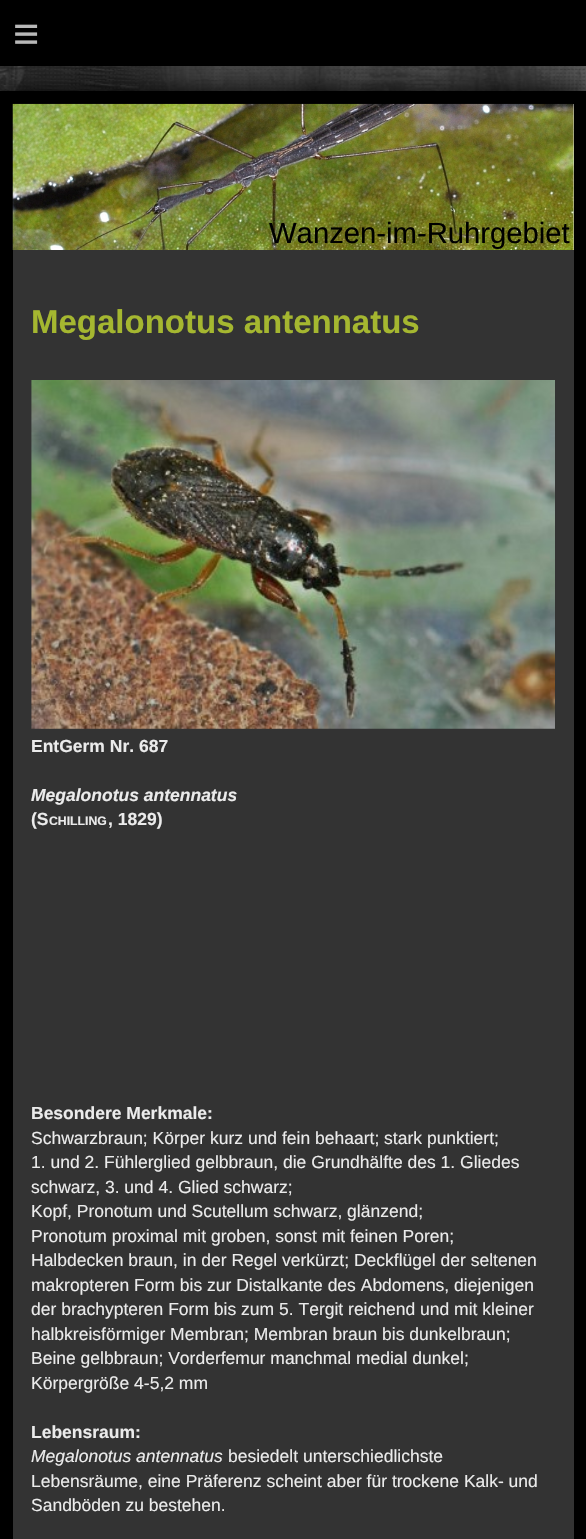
#include "include/core/SkBlurTypes.h"
#include "include/core/SkCanvas.h"
#include "include/core/SkData.h"
#include "include/core/SkFont.h"
#include "include/core/SkFontMgr.h"
#include "include/core/SkImage.h"
#include "include/core/SkMaskFilter.h"
#include "include/core/SkPaint.h"
#include "include/core/SkPathBuilder.h"
#include "include/core/SkTextBlob.h"
#include "include/effects/SkDashPathEffect.h"
#include "include/effects/SkGradientShader.h"
#include "include/utils/SkParsePath.h"

extern sk_sp<SkFontMgr> fontMgr;

static SkFont font(const char* family, int weight, float size, bool italic = false) {
    SkFontStyle style(weight, SkFontStyle::kNormal_Width,
        italic ? SkFontStyle::kItalic_Slant : SkFontStyle::kUpright_Slant);
    SkFont result(fontMgr->matchFamilyStyle(family, style), size);
    result.setSubpixel(true);
    return result;
}

static void drawLabel(SkCanvas* canvas, const char* s, float x, float y, const SkFont& font, SkColor color) {
    SkPaint ink(SkColor4f::FromColor(color));
    ink.setAntiAlias(true);
    canvas->drawString(s, x, y, font, ink);
}

static void drawTracked(SkCanvas* canvas, const char* s, float x, float y, const SkFont& font, const SkPaint& ink, float letter, float word) {
    std::vector<SkGlyphID> glyphs(font.countText(s, strlen(s), SkTextEncoding::kUTF8));
    std::vector<float> xs(glyphs.size());
    font.textToGlyphs(s, strlen(s), SkTextEncoding::kUTF8, glyphs);
    font.getXPos(glyphs, xs, x);
    float extra = 0;
    for (size_t i = 0; i < glyphs.size(); i++) {
        xs[i] += extra;
        extra += letter + word * (glyphs[i] == font.unicharToGlyph(' '));
    }
    canvas->drawTextBlob(SkTextBlob::MakeFromPosHGlyphs(glyphs, xs, y, font), 0, 0, ink);
}

static void fillRect(SkCanvas* canvas, float x, float y, float w, float h, SkColor color) {
    SkPaint ink(SkColor4f::FromColor(color));
    ink.setAntiAlias(true);
    canvas->drawRect(SkRect::MakeXYWH(x, y, w, h), ink);
}

static void drawPhoto(SkCanvas* canvas, const char* path, float x, float y, float w, float h) {
    auto image = SkImages::DeferredFromEncodedData(SkData::MakeFromFileName(path));
    canvas->drawImageRect(image, SkRect::MakeXYWH(x, y, w, h), SkSamplingOptions());
}

void draw(SkCanvas* canvas) {
    SkPaint paint;
    paint.setAntiAlias(true);
    canvas->clear(0xFFFFFFFF);
    drawPhoto(canvas, "assets/img1.png", 0, 66, 586, 25);
    paint.setColor(0xFF000000);
    paint.setMaskFilter(SkMaskFilter::MakeBlur(kNormal_SkBlurStyle, 12.5f));
    canvas->drawRect(SkRect::MakeXYWH(0, 91, 586, 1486), paint);
    paint.setMaskFilter(nullptr);
    fillRect(canvas, 0, 0, 586, 66, 0xFF000000);
    SkFont font1 = font("Liberation Sans", 400, 45);
    paint.setColor(0xFFB8B8B8);
    drawTracked(canvas, "≡", 13, 49, font1, paint, 13, 0);
    fillRect(canvas, 0, 91, 586, 1448, 0xFF000000);
    fillRect(canvas, 573, 104, 1, 146, 0xFFEEEEEE);
    drawPhoto(canvas, "assets/img2.png", 12, 103, 562, 147);
    SkFont font2 = font("Liberation Sans", 400, 29.25f);
    drawLabel(canvas, "Wanzen-im-Ruhrgebiet", 269, 243, font2, 0xFF000000);
    fillRect(canvas, 13, 250, 561, 1289, 0xFF333333);
    SkFont font3 = font("Liberation Sans", 700, 33);
    drawLabel(canvas, "Megalonotus antennatus", 31, 333, font3, 0xFFA5B730);
    drawPhoto(canvas, "assets/img3.png", 31, 380, 524, 349);
    SkFont font4 = font("Liberation Sans", 700, 17.5f);
    drawLabel(canvas, "EntGerm Nr. 687", 31, 752, font4, 0xFFEBEBEB);
    SkFont font5 = font("Liberation Sans", 700, 17.5f, true);
    drawLabel(canvas, "Megalonotus antennatus", 31, 801, font5, 0xFFEBEBEB);
    drawLabel(canvas, "(S", 31, 825, font4, 0xFFEBEBEB);
    SkFont font6 = font("Liberation Sans", 700, 12.25f);
    drawLabel(canvas, "CHILLING", 49, 825, font6, 0xFFEBEBEB);
    drawLabel(canvas, ", 1829)", 108, 825, font4, 0xFFEBEBEB);
    drawLabel(canvas, "Besondere Merkmale:", 31, 1119, font4, 0xFFEBEBEB);
    SkFont font7 = font("Liberation Sans", 400, 17.5f);
    drawLabel(canvas, "Schwarzbraun; Körper kurz und fein behaart; stark punktiert;", 31, 1144, font7, 0xFFEBEBEB);
    drawLabel(canvas, "1. und 2. Fühlerglied gelbbraun, die Grundhälfte des 1. Gliedes", 31, 1168, font7, 0xFFEBEBEB);
    drawLabel(canvas, "schwarz, 3. und 4. Glied schwarz;", 31, 1193, font7, 0xFFEBEBEB);
    drawLabel(canvas, "Kopf, Pronotum und Scutellum schwarz, glänzend;", 31, 1217, font7, 0xFFEBEBEB);
    drawLabel(canvas, "Pronotum proximal mit groben, sonst mit feinen Poren;", 31, 1242, font7, 0xFFEBEBEB);
    drawLabel(canvas, "Halbdecken braun, in der Regel verkürzt; Deckflügel der seltenen", 31, 1266, font7, 0xFFEBEBEB);
    drawLabel(canvas, "makropteren Form bis zur Distalkante des Abdomens, diejenigen", 31, 1291, font7, 0xFFEBEBEB);
    drawLabel(canvas, "der brachypteren Form bis zum 5. Tergit reichend und mit kleiner", 31, 1315, font7, 0xFFEBEBEB);
    drawLabel(canvas, "halbkreisförmiger Membran; Membran braun bis dunkelbraun;", 31, 1340, font7, 0xFFEBEBEB);
    drawLabel(canvas, "Beine gelbbraun; Vorderfemur manchmal medial dunkel;", 31, 1364, font7, 0xFFEBEBEB);
    drawLabel(canvas, "Körpergröße 4-5,2 mm", 31, 1389, font7, 0xFFEBEBEB);
    drawLabel(canvas, "Lebensraum:", 31, 1438, font4, 0xFFEBEBEB);
    SkFont font8 = font("Liberation Sans", 400, 17.5f, true);
    drawLabel(canvas, "Megalonotus antennatus", 31, 1462, font8, 0xFFEBEBEB);
    drawLabel(canvas, "besiedelt unterschiedlichste", 228, 1462, font7, 0xFFEBEBEB);
    drawLabel(canvas, "Lebensräume, eine Präferenz scheint aber für trockene Kalk- und", 31, 1487, font7, 0xFFEBEBEB);
    drawLabel(canvas, "Sandböden zu bestehen.", 31, 1511, font7, 0xFFEBEBEB);
}
